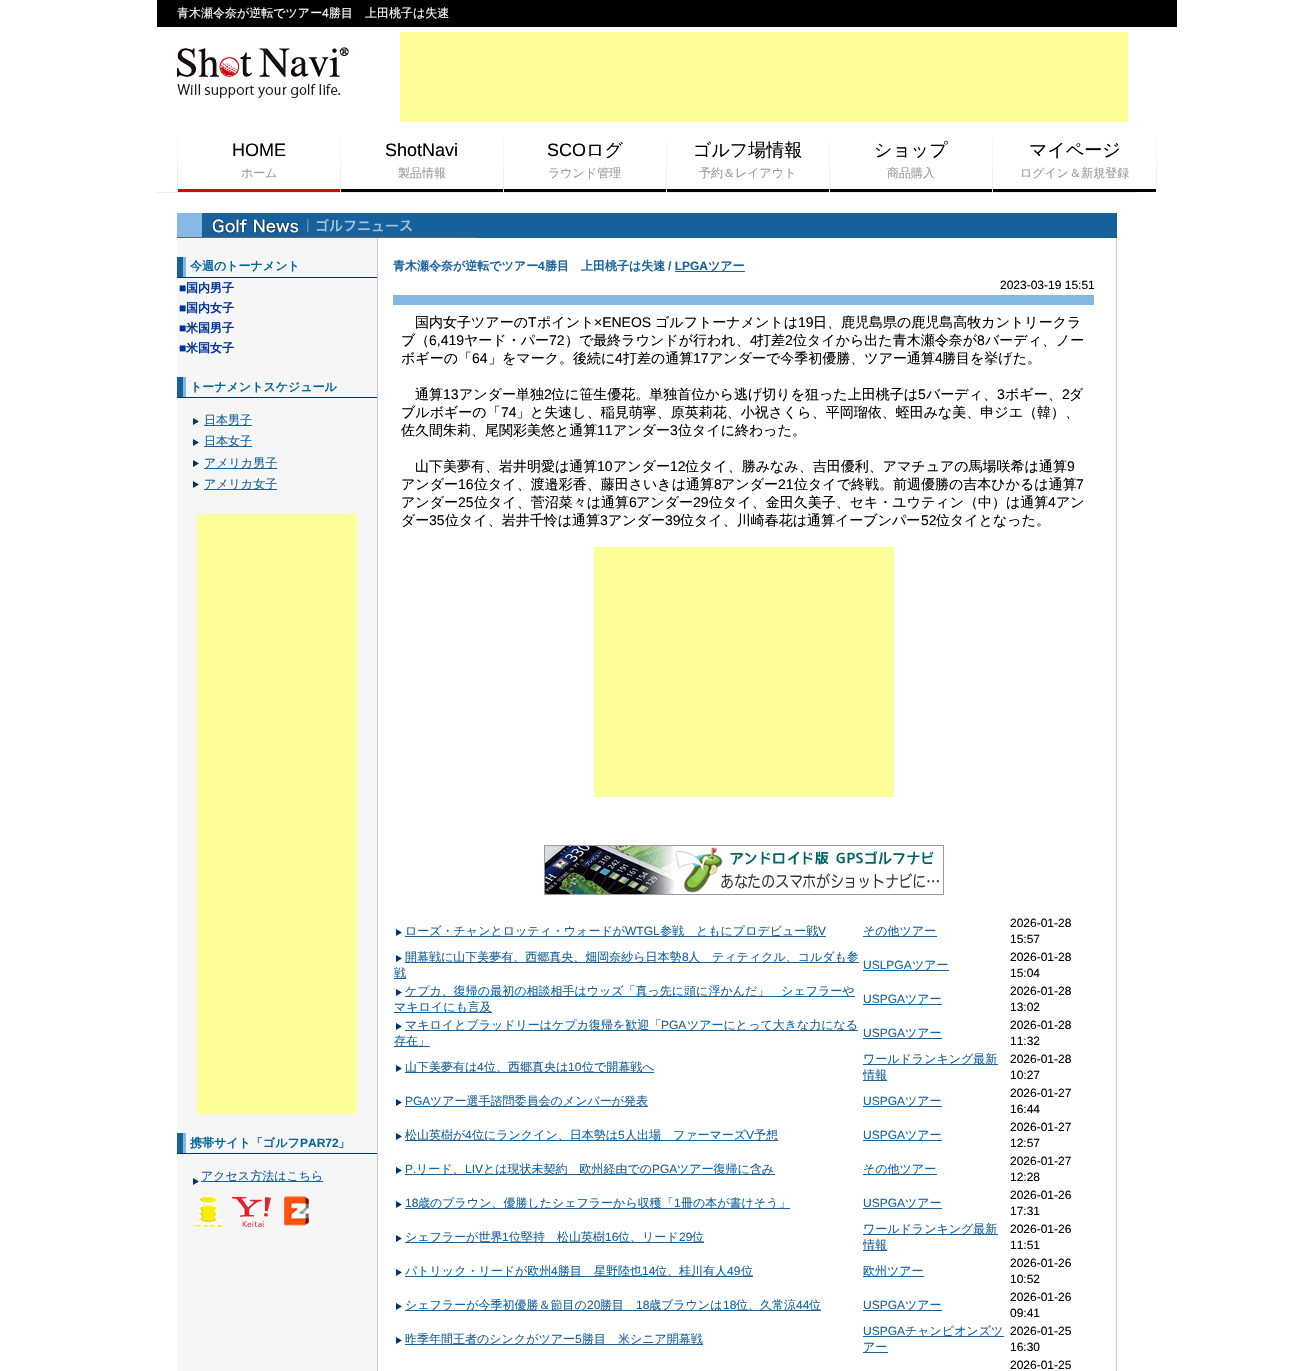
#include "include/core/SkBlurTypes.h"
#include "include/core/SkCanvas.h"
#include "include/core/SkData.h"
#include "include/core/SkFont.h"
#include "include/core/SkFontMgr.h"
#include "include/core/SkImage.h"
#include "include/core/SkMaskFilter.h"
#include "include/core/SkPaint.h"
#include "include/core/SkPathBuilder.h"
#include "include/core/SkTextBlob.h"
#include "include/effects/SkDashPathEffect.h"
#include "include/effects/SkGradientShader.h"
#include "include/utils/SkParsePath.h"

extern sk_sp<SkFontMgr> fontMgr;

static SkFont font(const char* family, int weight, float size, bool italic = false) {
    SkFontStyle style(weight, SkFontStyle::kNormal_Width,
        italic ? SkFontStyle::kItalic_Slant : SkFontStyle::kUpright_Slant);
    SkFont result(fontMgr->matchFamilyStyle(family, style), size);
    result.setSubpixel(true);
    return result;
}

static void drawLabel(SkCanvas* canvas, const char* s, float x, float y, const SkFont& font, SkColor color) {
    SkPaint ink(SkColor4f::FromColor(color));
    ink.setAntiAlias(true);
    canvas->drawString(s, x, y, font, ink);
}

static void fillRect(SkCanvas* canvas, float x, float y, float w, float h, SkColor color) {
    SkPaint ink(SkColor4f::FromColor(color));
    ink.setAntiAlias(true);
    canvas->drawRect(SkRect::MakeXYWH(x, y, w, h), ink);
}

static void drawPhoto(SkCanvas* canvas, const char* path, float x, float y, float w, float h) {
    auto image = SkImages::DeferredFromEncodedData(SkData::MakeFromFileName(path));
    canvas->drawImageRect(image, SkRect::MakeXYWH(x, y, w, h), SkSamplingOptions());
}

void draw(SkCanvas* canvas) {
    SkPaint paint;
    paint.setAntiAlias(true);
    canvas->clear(0xFFFFFFFF);
    fillRect(canvas, 157, 0, 1020, 27, 0xFF000000);
    SkFont font1 = font("WenQuanYi Zen Hei", 500, 12);
    drawLabel(canvas, "青木瀬令奈が逆転でツアー", 177, 17, font1, 0xFFFFFFFF);
    SkFont font2 = font("Liberation Sans", 400, 12);
    drawLabel(canvas, "4", 322, 17, font2, 0xFFFFFFFF);
    drawLabel(canvas, "勝目　上田桃子は失速", 329, 17, font1, 0xFFFFFFFF);
    drawPhoto(canvas, "assets/img1.png", 177, 47, 173, 51);
    fillRect(canvas, 400, 32, 728, 90, 0xFFFFFF99);
    fillRect(canvas, 157, 192, 980, 1, 0xFFEEEEEE);
    drawPhoto(canvas, "assets/img2.png", 177, 137, 980, 55);
    fillRect(canvas, 178, 137, 162, 52, 0xFFFFFFFF);
    fillRect(canvas, 178, 189, 162, 3, 0xFFDD0000);
    SkFont font3 = font("Liberation Sans", 400, 18);
    drawLabel(canvas, "HOME", 232, 156, font3, 0xFF000000);
    drawLabel(canvas, "ホーム", 241, 177, font1, 0xFF999999);
    fillRect(canvas, 341, 137, 162, 52, 0xFFFFFFFF);
    fillRect(canvas, 341, 189, 162, 3, 0xFF000000);
    drawLabel(canvas, "ShotNavi", 385, 156, font3, 0xFF000000);
    drawLabel(canvas, "製品情報", 398, 177, font1, 0xFF999999);
    fillRect(canvas, 504, 137, 162, 52, 0xFFFFFFFF);
    fillRect(canvas, 504, 189, 162, 3, 0xFF000000);
    drawLabel(canvas, "SCO", 547, 156, font3, 0xFF000000);
    SkFont font4 = font("WenQuanYi Zen Hei", 500, 18);
    drawLabel(canvas, "ログ", 586, 156, font4, 0xFF000000);
    drawLabel(canvas, "ラウンド管理", 548, 177, font1, 0xFF999999);
    fillRect(canvas, 667, 137, 162, 52, 0xFFFFFFFF);
    fillRect(canvas, 667, 189, 162, 3, 0xFF000000);
    drawLabel(canvas, "ゴルフ場情報", 693, 156, font4, 0xFF000000);
    drawLabel(canvas, "予約＆レイアウト", 699, 177, font1, 0xFF999999);
    fillRect(canvas, 830, 137, 162, 52, 0xFFFFFFFF);
    fillRect(canvas, 830, 189, 162, 3, 0xFF000000);
    drawLabel(canvas, "ショップ", 874, 156, font4, 0xFF000000);
    drawLabel(canvas, "商品購入", 887, 177, font1, 0xFF999999);
    fillRect(canvas, 993, 137, 163, 52, 0xFFFFFFFF);
    fillRect(canvas, 993, 189, 163, 3, 0xFF000000);
    drawLabel(canvas, "マイページ", 1029, 156, font4, 0xFF000000);
    drawLabel(canvas, "ログイン＆新規登録", 1020, 177, font1, 0xFF999999);
    fillRect(canvas, 477, 213, 640, 25, 0xFF17619C);
    drawPhoto(canvas, "assets/img3.png", 177, 213, 300, 25);
    fillRect(canvas, 177, 238, 200, 1133, 0xFFF6F6F6);
    drawPhoto(canvas, "assets/img4.png", 177, 257, 9, 20);
    SkFont font5 = font("WenQuanYi Zen Hei", 700, 12);
    drawLabel(canvas, "今週のトーナメント", 190, 270, font5, 0xFF006699);
    fillRect(canvas, 177, 277, 200, 1, 0xFF003366);
    SkFont font6 = font("Liberation Sans", 700, 12);
    drawLabel(canvas, "■", 179, 292, font6, 0xFF003399);
    drawLabel(canvas, "国内男子", 186, 292, font5, 0xFF003399);
    drawLabel(canvas, "■", 179, 312, font6, 0xFF003399);
    drawLabel(canvas, "国内女子", 186, 312, font5, 0xFF003399);
    drawLabel(canvas, "■", 179, 332, font6, 0xFF003399);
    drawLabel(canvas, "米国男子", 186, 332, font5, 0xFF003399);
    drawLabel(canvas, "■", 179, 352, font6, 0xFF003399);
    drawLabel(canvas, "米国女子", 186, 352, font5, 0xFF003399);
    drawPhoto(canvas, "assets/img4.png", 177, 377, 9, 20);
    drawLabel(canvas, "トーナメントスケジュール", 190, 391, font5, 0xFF006699);
    fillRect(canvas, 177, 397, 200, 1, 0xFF003366);
    drawPhoto(canvas, "assets/img5.png", 193, 418, 6, 7);
    fillRect(canvas, 204, 425, 48, 1, 0xFF17619C);
    drawLabel(canvas, "日本男子", 204, 424, font1, 0xFF17619C);
    drawPhoto(canvas, "assets/img5.png", 193, 439, 6, 7);
    fillRect(canvas, 204, 446, 48, 1, 0xFF17619C);
    drawLabel(canvas, "日本女子", 204, 445, font1, 0xFF17619C);
    drawPhoto(canvas, "assets/img5.png", 193, 460, 6, 7);
    fillRect(canvas, 204, 468, 73, 1, 0xFF17619C);
    drawLabel(canvas, "アメリカ男子", 204, 467, font1, 0xFF17619C);
    drawPhoto(canvas, "assets/img5.png", 193, 481, 6, 7);
    fillRect(canvas, 204, 489, 73, 1, 0xFF17619C);
    drawLabel(canvas, "アメリカ女子", 204, 488, font1, 0xFF17619C);
    fillRect(canvas, 197, 514, 160, 600, 0xFFFFFF99);
    drawPhoto(canvas, "assets/img4.png", 177, 1133, 9, 20);
    drawLabel(canvas, "携帯サイト「ゴルフ", 190, 1147, font5, 0xFF006699);
    drawLabel(canvas, "PAR72", 300, 1147, font6, 0xFF006699);
    drawLabel(canvas, "」", 338, 1147, font5, 0xFF006699);
    fillRect(canvas, 177, 1153, 200, 1, 0xFF003366);
    drawPhoto(canvas, "assets/img5.png", 193, 1178, 6, 7);
    fillRect(canvas, 201, 1181, 122, 1, 0xFF17619C);
    drawLabel(canvas, "アクセス方法はこちら", 201, 1180, font1, 0xFF17619C);
    drawPhoto(canvas, "assets/img6.png", 191, 1195, 118, 34);
    fillRect(canvas, 377, 238, 1, 1133, 0xFFCCCCCC);
    drawLabel(canvas, "青木瀬令奈が逆転でツアー", 393, 270, font5, 0xFF17619C);
    drawLabel(canvas, "4", 538, 270, font6, 0xFF17619C);
    drawLabel(canvas, "勝目　上田桃子は失速", 545, 270, font5, 0xFF17619C);
    drawLabel(canvas, "/ LPGA", 668, 270, font6, 0xFF17619C);
    fillRect(canvas, 675, 271, 70, 1, 0xFF17619C);
    drawLabel(canvas, "ツアー", 708, 270, font5, 0xFF17619C);
    drawLabel(canvas, "2023-03-19 15:51", 1000, 289, font2, 0xFF000000);
    fillRect(canvas, 393, 295, 701, 10, 0xFF84B8E2);
    SkFont font7 = font("WenQuanYi Zen Hei", 500, 14);
    drawLabel(canvas, "国内女子ツアーの", 415, 327, font7, 0xFF000000);
    SkFont font8 = font("Liberation Sans", 400, 14);
    drawLabel(canvas, "T", 528, 327, font8, 0xFF000000);
    drawLabel(canvas, "ポイント", 537, 327, font7, 0xFF000000);
    drawLabel(canvas, "×ENEOS", 594, 327, font8, 0xFF000000);
    drawLabel(canvas, "ゴルフトーナメントは", 655, 327, font7, 0xFF000000);
    drawLabel(canvas, "19", 798, 327, font8, 0xFF000000);
    drawLabel(canvas, "日、鹿児島県の鹿児島高牧カントリークラ", 813, 327, font7, 0xFF000000);
    drawLabel(canvas, "ブ（", 401, 345, font7, 0xFF000000);
    drawLabel(canvas, "6,419", 429, 345, font8, 0xFF000000);
    drawLabel(canvas, "ヤード・パー", 464, 345, font7, 0xFF000000);
    drawLabel(canvas, "72", 549, 345, font8, 0xFF000000);
    drawLabel(canvas, "）で最終ラウンドが行われ、", 565, 345, font7, 0xFF000000);
    drawLabel(canvas, "4", 750, 345, font8, 0xFF000000);
    drawLabel(canvas, "打差", 757, 345, font7, 0xFF000000);
    drawLabel(canvas, "2", 785, 345, font8, 0xFF000000);
    drawLabel(canvas, "位タイから出た青木瀬令奈が", 793, 345, font7, 0xFF000000);
    drawLabel(canvas, "8", 977, 345, font8, 0xFF000000);
    drawLabel(canvas, "バーディ、ノー", 985, 345, font7, 0xFF000000);
    drawLabel(canvas, "ボギーの「", 401, 363, font7, 0xFF000000);
    drawLabel(canvas, "64", 472, 363, font8, 0xFF000000);
    drawLabel(canvas, "」をマーク。後続に", 488, 363, font7, 0xFF000000);
    drawLabel(canvas, "4", 615, 363, font8, 0xFF000000);
    drawLabel(canvas, "打差の通算", 623, 363, font7, 0xFF000000);
    drawLabel(canvas, "17", 693, 363, font8, 0xFF000000);
    drawLabel(canvas, "アンダーで今季初優勝、ツアー通算", 709, 363, font7, 0xFF000000);
    drawLabel(canvas, "4", 935, 363, font8, 0xFF000000);
    drawLabel(canvas, "勝目を挙げた。", 942, 363, font7, 0xFF000000);
    drawLabel(canvas, "通算", 415, 399, font7, 0xFF000000);
    drawLabel(canvas, "13", 443, 399, font8, 0xFF000000);
    drawLabel(canvas, "アンダー単独", 459, 399, font7, 0xFF000000);
    drawLabel(canvas, "2", 544, 399, font8, 0xFF000000);
    drawLabel(canvas, "位に笹生優花。単独首位から逃げ切りを狙った上田桃子は", 551, 399, font7, 0xFF000000);
    drawLabel(canvas, "5", 918, 399, font8, 0xFF000000);
    drawLabel(canvas, "バーディ、", 926, 399, font7, 0xFF000000);
    drawLabel(canvas, "3", 997, 399, font8, 0xFF000000);
    drawLabel(canvas, "ボギー、", 1005, 399, font7, 0xFF000000);
    drawLabel(canvas, "2", 1062, 399, font8, 0xFF000000);
    drawLabel(canvas, "ダ", 1069, 399, font7, 0xFF000000);
    drawLabel(canvas, "ブルボギーの「", 401, 417, font7, 0xFF000000);
    drawLabel(canvas, "74", 501, 417, font8, 0xFF000000);
    drawLabel(canvas, "」と失速し、稲見萌寧、原英莉花、小祝さくら、平岡瑠依、蛭田みな美、申ジエ（韓）、", 516, 417, font7, 0xFF000000);
    drawLabel(canvas, "佐久間朱莉、尾関彩美悠と通算", 401, 435, font7, 0xFF000000);
    drawLabel(canvas, "11", 597, 435, font8, 0xFF000000);
    drawLabel(canvas, "アンダー", 613, 435, font7, 0xFF000000);
    drawLabel(canvas, "3", 670, 435, font8, 0xFF000000);
    drawLabel(canvas, "位タイに終わった。", 678, 435, font7, 0xFF000000);
    drawLabel(canvas, "山下美夢有、岩井明愛は通算", 415, 471, font7, 0xFF000000);
    drawLabel(canvas, "10", 597, 471, font8, 0xFF000000);
    drawLabel(canvas, "アンダー", 613, 471, font7, 0xFF000000);
    drawLabel(canvas, "12", 670, 471, font8, 0xFF000000);
    drawLabel(canvas, "位タイ、勝みなみ、吉田優利、アマチュアの馬場咲希は通算", 685, 471, font7, 0xFF000000);
    drawLabel(canvas, "9", 1067, 471, font8, 0xFF000000);
    drawLabel(canvas, "アンダー", 401, 489, font7, 0xFF000000);
    drawLabel(canvas, "16", 458, 489, font8, 0xFF000000);
    drawLabel(canvas, "位タイ、渡邉彩香、藤田さいきは通算", 474, 489, font7, 0xFF000000);
    drawLabel(canvas, "8", 714, 489, font8, 0xFF000000);
    drawLabel(canvas, "アンダー", 721, 489, font7, 0xFF000000);
    drawLabel(canvas, "21", 778, 489, font8, 0xFF000000);
    drawLabel(canvas, "位タイで終戦。前週優勝の吉本ひかるは通算", 794, 489, font7, 0xFF000000);
    drawLabel(canvas, "7", 1076, 489, font8, 0xFF000000);
    drawLabel(canvas, "アンダー", 401, 507, font7, 0xFF000000);
    drawLabel(canvas, "25", 458, 507, font8, 0xFF000000);
    drawLabel(canvas, "位タイ、菅沼菜々は通算", 474, 507, font7, 0xFF000000);
    drawLabel(canvas, "6", 629, 507, font8, 0xFF000000);
    drawLabel(canvas, "アンダー", 636, 507, font7, 0xFF000000);
    drawLabel(canvas, "29", 693, 507, font8, 0xFF000000);
    drawLabel(canvas, "位タイ、金田久美子、セキ・ユウティン（中）は通算", 709, 507, font7, 0xFF000000);
    drawLabel(canvas, "4", 1048, 507, font8, 0xFF000000);
    drawLabel(canvas, "アン", 1056, 507, font7, 0xFF000000);
    drawLabel(canvas, "ダー", 401, 525, font7, 0xFF000000);
    drawLabel(canvas, "35", 429, 525, font8, 0xFF000000);
    drawLabel(canvas, "位タイ、岩井千怜は通算", 445, 525, font7, 0xFF000000);
    drawLabel(canvas, "3", 600, 525, font8, 0xFF000000);
    drawLabel(canvas, "アンダー", 608, 525, font7, 0xFF000000);
    drawLabel(canvas, "39", 665, 525, font8, 0xFF000000);
    drawLabel(canvas, "位タイ、川崎春花は通算イーブンパー", 680, 525, font7, 0xFF000000);
    drawLabel(canvas, "52", 921, 525, font8, 0xFF000000);
    drawLabel(canvas, "位タイとなった。", 936, 525, font7, 0xFF000000);
    fillRect(canvas, 594, 547, 300, 250, 0xFFFFFF99);
    drawPhoto(canvas, "assets/img7.png", 544, 845, 400, 50);
    drawPhoto(canvas, "assets/img8.png", 396, 929, 6, 7);
    fillRect(canvas, 405, 936, 421, 1, 0xFF17619C);
    drawLabel(canvas, "ローズ・チャンとロッティ・ウォードが", 405, 935, font1, 0xFF17619C);
    drawLabel(canvas, "WTGL", 625, 935, font2, 0xFF17619C);
    drawLabel(canvas, "参戦　ともにプロデビュー戦", 660, 935, font1, 0xFF17619C);
    drawLabel(canvas, "V", 818, 935, font2, 0xFF17619C);
    fillRect(canvas, 863, 936, 74, 1, 0xFF17619C);
    drawLabel(canvas, "その他ツアー", 863, 935, font1, 0xFF17619C);
    drawLabel(canvas, "2026-01-28", 1010, 927, font2, 0xFF000000);
    drawLabel(canvas, "15:57", 1010, 943, font2, 0xFF000000);
    drawPhoto(canvas, "assets/img8.png", 396, 955, 6, 7);
    fillRect(canvas, 405, 962, 454, 1, 0xFF17619C);
    drawLabel(canvas, "開幕戦に山下美夢有、西郷真央、畑岡奈紗ら日本勢", 405, 961, font1, 0xFF17619C);
    drawLabel(canvas, "8", 682, 961, font2, 0xFF17619C);
    drawLabel(canvas, "人　ティティクル、コルダも参", 688, 961, font1, 0xFF17619C);
    fillRect(canvas, 394, 978, 12, 1, 0xFF17619C);
    drawLabel(canvas, "戦", 394, 977, font1, 0xFF17619C);
    drawLabel(canvas, "USLPGA", 863, 969, font2, 0xFF17619C);
    fillRect(canvas, 863, 970, 86, 1, 0xFF17619C);
    drawLabel(canvas, "ツアー", 912, 969, font1, 0xFF17619C);
    drawLabel(canvas, "2026-01-28", 1010, 961, font2, 0xFF000000);
    drawLabel(canvas, "15:04", 1010, 977, font2, 0xFF000000);
    drawPhoto(canvas, "assets/img8.png", 396, 989, 6, 7);
    fillRect(canvas, 405, 996, 450, 1, 0xFF17619C);
    drawLabel(canvas, "ケプカ、復帰の最初の相談相手はウッズ「真っ先に頭に浮かんだ」　シェフラーや", 405, 995, font1, 0xFF17619C);
    fillRect(canvas, 394, 1012, 98, 1, 0xFF17619C);
    drawLabel(canvas, "マキロイにも言及", 394, 1011, font1, 0xFF17619C);
    drawLabel(canvas, "USPGA", 863, 1003, font2, 0xFF17619C);
    fillRect(canvas, 863, 1004, 79, 1, 0xFF17619C);
    drawLabel(canvas, "ツアー", 905, 1003, font1, 0xFF17619C);
    drawLabel(canvas, "2026-01-28", 1010, 995, font2, 0xFF000000);
    drawLabel(canvas, "13:02", 1010, 1011, font2, 0xFF000000);
    drawPhoto(canvas, "assets/img8.png", 396, 1023, 6, 7);
    fillRect(canvas, 405, 1030, 453, 1, 0xFF17619C);
    drawLabel(canvas, "マキロイとブラッドリーはケプカ復帰を歓迎「", 405, 1029, font1, 0xFF17619C);
    drawLabel(canvas, "PGA", 661, 1029, font2, 0xFF17619C);
    drawLabel(canvas, "ツアーにとって大きな力になる", 687, 1029, font1, 0xFF17619C);
    fillRect(canvas, 394, 1046, 36, 1, 0xFF17619C);
    drawLabel(canvas, "存在」", 394, 1045, font1, 0xFF17619C);
    drawLabel(canvas, "USPGA", 863, 1037, font2, 0xFF17619C);
    fillRect(canvas, 863, 1038, 79, 1, 0xFF17619C);
    drawLabel(canvas, "ツアー", 905, 1037, font1, 0xFF17619C);
    drawLabel(canvas, "2026-01-28", 1010, 1029, font2, 0xFF000000);
    drawLabel(canvas, "11:32", 1010, 1045, font2, 0xFF000000);
    drawPhoto(canvas, "assets/img8.png", 396, 1065, 6, 7);
    fillRect(canvas, 405, 1072, 249, 1, 0xFF17619C);
    drawLabel(canvas, "山下美夢有は", 405, 1071, font1, 0xFF17619C);
    drawLabel(canvas, "4", 477, 1071, font2, 0xFF17619C);
    drawLabel(canvas, "位、西郷真央は", 484, 1071, font1, 0xFF17619C);
    drawLabel(canvas, "10", 568, 1071, font2, 0xFF17619C);
    drawLabel(canvas, "位で開幕戦へ", 582, 1071, font1, 0xFF17619C);
    fillRect(canvas, 863, 1064, 135, 1, 0xFF17619C);
    drawLabel(canvas, "ワールドランキング最新", 863, 1063, font1, 0xFF17619C);
    fillRect(canvas, 863, 1080, 24, 1, 0xFF17619C);
    drawLabel(canvas, "情報", 863, 1079, font1, 0xFF17619C);
    drawLabel(canvas, "2026-01-28", 1010, 1063, font2, 0xFF000000);
    drawLabel(canvas, "10:27", 1010, 1079, font2, 0xFF000000);
    drawPhoto(canvas, "assets/img8.png", 396, 1099, 6, 7);
    drawLabel(canvas, "PGA", 405, 1105, font2, 0xFF17619C);
    fillRect(canvas, 405, 1106, 243, 1, 0xFF17619C);
    drawLabel(canvas, "ツアー選手諮問委員会のメンバーが発表", 430, 1105, font1, 0xFF17619C);
    drawLabel(canvas, "USPGA", 863, 1105, font2, 0xFF17619C);
    fillRect(canvas, 863, 1106, 79, 1, 0xFF17619C);
    drawLabel(canvas, "ツアー", 905, 1105, font1, 0xFF17619C);
    drawLabel(canvas, "2026-01-27", 1010, 1097, font2, 0xFF000000);
    drawLabel(canvas, "16:44", 1010, 1113, font2, 0xFF000000);
    drawPhoto(canvas, "assets/img8.png", 396, 1133, 6, 7);
    fillRect(canvas, 405, 1140, 373, 1, 0xFF17619C);
    drawLabel(canvas, "松山英樹が", 405, 1139, font1, 0xFF17619C);
    drawLabel(canvas, "4", 465, 1139, font2, 0xFF17619C);
    drawLabel(canvas, "位にランクイン、日本勢は", 472, 1139, font1, 0xFF17619C);
    drawLabel(canvas, "5", 618, 1139, font2, 0xFF17619C);
    drawLabel(canvas, "人出場　ファーマーズ", 625, 1139, font1, 0xFF17619C);
    drawLabel(canvas, "V", 746, 1139, font2, 0xFF17619C);
    drawLabel(canvas, "予想", 754, 1139, font1, 0xFF17619C);
    drawLabel(canvas, "USPGA", 863, 1139, font2, 0xFF17619C);
    fillRect(canvas, 863, 1140, 79, 1, 0xFF17619C);
    drawLabel(canvas, "ツアー", 905, 1139, font1, 0xFF17619C);
    drawLabel(canvas, "2026-01-27", 1010, 1131, font2, 0xFF000000);
    drawLabel(canvas, "12:57", 1010, 1147, font2, 0xFF000000);
    drawPhoto(canvas, "assets/img8.png", 396, 1167, 6, 7);
    drawLabel(canvas, "P.", 405, 1173, font2, 0xFF17619C);
    fillRect(canvas, 405, 1174, 370, 1, 0xFF17619C);
    drawLabel(canvas, "リード、", 416, 1173, font1, 0xFF17619C);
    drawLabel(canvas, "LIV", 465, 1173, font2, 0xFF17619C);
    drawLabel(canvas, "とは現状未契約　欧州経由での", 483, 1173, font1, 0xFF17619C);
    drawLabel(canvas, "PGA", 652, 1173, font2, 0xFF17619C);
    drawLabel(canvas, "ツアー復帰に含み", 677, 1173, font1, 0xFF17619C);
    fillRect(canvas, 863, 1174, 74, 1, 0xFF17619C);
    drawLabel(canvas, "その他ツアー", 863, 1173, font1, 0xFF17619C);
    drawLabel(canvas, "2026-01-27", 1010, 1165, font2, 0xFF000000);
    drawLabel(canvas, "12:28", 1010, 1181, font2, 0xFF000000);
    drawPhoto(canvas, "assets/img8.png", 396, 1201, 6, 7);
    drawLabel(canvas, "18", 405, 1207, font2, 0xFF17619C);
    fillRect(canvas, 405, 1208, 385, 1, 0xFF17619C);
    drawLabel(canvas, "歳のブラウン、優勝したシェフラーから収穫「", 418, 1207, font1, 0xFF17619C);
    drawLabel(canvas, "1", 674, 1207, font2, 0xFF17619C);
    drawLabel(canvas, "冊の本が書けそう」", 681, 1207, font1, 0xFF17619C);
    drawLabel(canvas, "USPGA", 863, 1207, font2, 0xFF17619C);
    fillRect(canvas, 863, 1208, 79, 1, 0xFF17619C);
    drawLabel(canvas, "ツアー", 905, 1207, font1, 0xFF17619C);
    drawLabel(canvas, "2026-01-26", 1010, 1199, font2, 0xFF000000);
    drawLabel(canvas, "17:31", 1010, 1215, font2, 0xFF000000);
    drawPhoto(canvas, "assets/img8.png", 396, 1235, 6, 7);
    fillRect(canvas, 405, 1242, 299, 1, 0xFF17619C);
    drawLabel(canvas, "シェフラーが世界", 405, 1241, font1, 0xFF17619C);
    drawLabel(canvas, "1", 502, 1241, font2, 0xFF17619C);
    drawLabel(canvas, "位堅持　松山英樹", 509, 1241, font1, 0xFF17619C);
    drawLabel(canvas, "16", 605, 1241, font2, 0xFF17619C);
    drawLabel(canvas, "位、リード", 618, 1241, font1, 0xFF17619C);
    drawLabel(canvas, "29", 679, 1241, font2, 0xFF17619C);
    drawLabel(canvas, "位", 692, 1241, font1, 0xFF17619C);
    fillRect(canvas, 863, 1234, 135, 1, 0xFF17619C);
    drawLabel(canvas, "ワールドランキング最新", 863, 1233, font1, 0xFF17619C);
    fillRect(canvas, 863, 1250, 24, 1, 0xFF17619C);
    drawLabel(canvas, "情報", 863, 1249, font1, 0xFF17619C);
    drawLabel(canvas, "2026-01-26", 1010, 1233, font2, 0xFF000000);
    drawLabel(canvas, "11:51", 1010, 1249, font2, 0xFF000000);
    drawPhoto(canvas, "assets/img8.png", 396, 1269, 6, 7);
    fillRect(canvas, 405, 1276, 348, 1, 0xFF17619C);
    drawLabel(canvas, "パトリック・リードが欧州", 405, 1275, font1, 0xFF17619C);
    drawLabel(canvas, "4", 551, 1275, font2, 0xFF17619C);
    drawLabel(canvas, "勝目　星野陸也", 558, 1275, font1, 0xFF17619C);
    drawLabel(canvas, "14", 642, 1275, font2, 0xFF17619C);
    drawLabel(canvas, "位、桂川有人", 655, 1275, font1, 0xFF17619C);
    drawLabel(canvas, "49", 727, 1275, font2, 0xFF17619C);
    drawLabel(canvas, "位", 741, 1275, font1, 0xFF17619C);
    fillRect(canvas, 863, 1276, 61, 1, 0xFF17619C);
    drawLabel(canvas, "欧州ツアー", 863, 1275, font1, 0xFF17619C);
    drawLabel(canvas, "2026-01-26", 1010, 1267, font2, 0xFF000000);
    drawLabel(canvas, "10:52", 1010, 1283, font2, 0xFF000000);
    drawPhoto(canvas, "assets/img8.png", 396, 1303, 6, 7);
    fillRect(canvas, 405, 1310, 416, 1, 0xFF17619C);
    drawLabel(canvas, "シェフラーが今季初優勝＆節目の", 405, 1309, font1, 0xFF17619C);
    drawLabel(canvas, "20", 587, 1309, font2, 0xFF17619C);
    drawLabel(canvas, "勝目", 600, 1309, font1, 0xFF17619C);
    drawLabel(canvas, "18", 636, 1309, font2, 0xFF17619C);
    drawLabel(canvas, "歳ブラウンは", 649, 1309, font1, 0xFF17619C);
    drawLabel(canvas, "18", 723, 1309, font2, 0xFF17619C);
    drawLabel(canvas, "位、久常涼", 736, 1309, font1, 0xFF17619C);
    drawLabel(canvas, "44", 796, 1309, font2, 0xFF17619C);
    drawLabel(canvas, "位", 809, 1309, font1, 0xFF17619C);
    drawLabel(canvas, "USPGA", 863, 1309, font2, 0xFF17619C);
    fillRect(canvas, 863, 1310, 79, 1, 0xFF17619C);
    drawLabel(canvas, "ツアー", 905, 1309, font1, 0xFF17619C);
    drawLabel(canvas, "2026-01-26", 1010, 1301, font2, 0xFF000000);
    drawLabel(canvas, "09:41", 1010, 1317, font2, 0xFF000000);
    drawPhoto(canvas, "assets/img8.png", 396, 1337, 6, 7);
    fillRect(canvas, 405, 1344, 298, 1, 0xFF17619C);
    drawLabel(canvas, "昨季年間王者のシンクがツアー", 405, 1343, font1, 0xFF17619C);
    drawLabel(canvas, "5", 575, 1343, font2, 0xFF17619C);
    drawLabel(canvas, "勝目　米シニア開幕戦", 582, 1343, font1, 0xFF17619C);
    drawLabel(canvas, "USPGA", 863, 1335, font2, 0xFF17619C);
    fillRect(canvas, 863, 1336, 141, 1, 0xFF17619C);
    drawLabel(canvas, "チャンピオンズツ", 905, 1335, font1, 0xFF17619C);
    drawLabel(canvas, "アー", 863, 1351, font1, 0xFF17619C);
    fillRect(canvas, 863, 1352, 25, 1, 0xFF17619C);
    drawLabel(canvas, "2026-01-25", 1010, 1335, font2, 0xFF000000);
    drawLabel(canvas, "16:30", 1010, 1351, font2, 0xFF000000);
    drawLabel(canvas, "2026-01-25", 1010, 1369, font2, 0xFF000000);
    fillRect(canvas, 1116, 238, 1, 1133, 0xFFCCCCCC);
}
